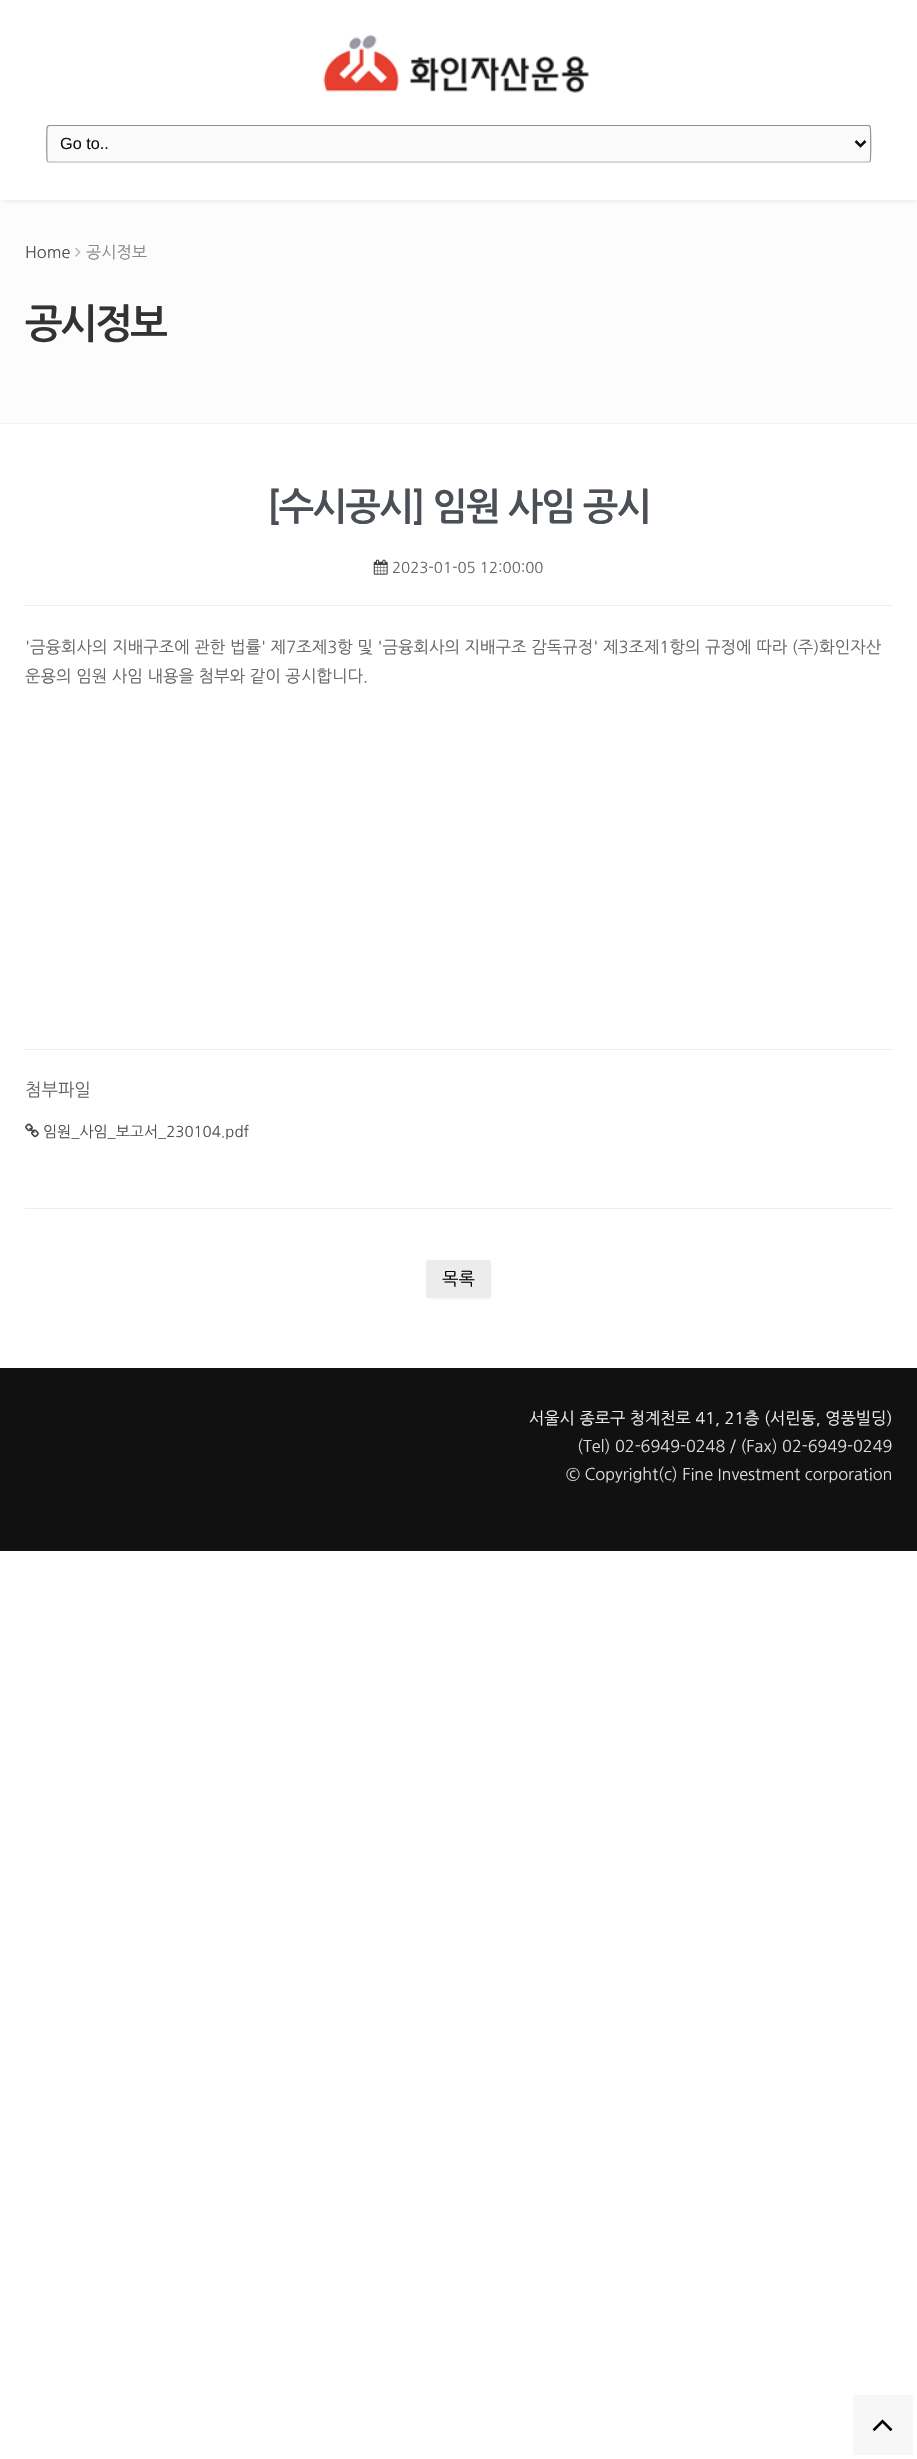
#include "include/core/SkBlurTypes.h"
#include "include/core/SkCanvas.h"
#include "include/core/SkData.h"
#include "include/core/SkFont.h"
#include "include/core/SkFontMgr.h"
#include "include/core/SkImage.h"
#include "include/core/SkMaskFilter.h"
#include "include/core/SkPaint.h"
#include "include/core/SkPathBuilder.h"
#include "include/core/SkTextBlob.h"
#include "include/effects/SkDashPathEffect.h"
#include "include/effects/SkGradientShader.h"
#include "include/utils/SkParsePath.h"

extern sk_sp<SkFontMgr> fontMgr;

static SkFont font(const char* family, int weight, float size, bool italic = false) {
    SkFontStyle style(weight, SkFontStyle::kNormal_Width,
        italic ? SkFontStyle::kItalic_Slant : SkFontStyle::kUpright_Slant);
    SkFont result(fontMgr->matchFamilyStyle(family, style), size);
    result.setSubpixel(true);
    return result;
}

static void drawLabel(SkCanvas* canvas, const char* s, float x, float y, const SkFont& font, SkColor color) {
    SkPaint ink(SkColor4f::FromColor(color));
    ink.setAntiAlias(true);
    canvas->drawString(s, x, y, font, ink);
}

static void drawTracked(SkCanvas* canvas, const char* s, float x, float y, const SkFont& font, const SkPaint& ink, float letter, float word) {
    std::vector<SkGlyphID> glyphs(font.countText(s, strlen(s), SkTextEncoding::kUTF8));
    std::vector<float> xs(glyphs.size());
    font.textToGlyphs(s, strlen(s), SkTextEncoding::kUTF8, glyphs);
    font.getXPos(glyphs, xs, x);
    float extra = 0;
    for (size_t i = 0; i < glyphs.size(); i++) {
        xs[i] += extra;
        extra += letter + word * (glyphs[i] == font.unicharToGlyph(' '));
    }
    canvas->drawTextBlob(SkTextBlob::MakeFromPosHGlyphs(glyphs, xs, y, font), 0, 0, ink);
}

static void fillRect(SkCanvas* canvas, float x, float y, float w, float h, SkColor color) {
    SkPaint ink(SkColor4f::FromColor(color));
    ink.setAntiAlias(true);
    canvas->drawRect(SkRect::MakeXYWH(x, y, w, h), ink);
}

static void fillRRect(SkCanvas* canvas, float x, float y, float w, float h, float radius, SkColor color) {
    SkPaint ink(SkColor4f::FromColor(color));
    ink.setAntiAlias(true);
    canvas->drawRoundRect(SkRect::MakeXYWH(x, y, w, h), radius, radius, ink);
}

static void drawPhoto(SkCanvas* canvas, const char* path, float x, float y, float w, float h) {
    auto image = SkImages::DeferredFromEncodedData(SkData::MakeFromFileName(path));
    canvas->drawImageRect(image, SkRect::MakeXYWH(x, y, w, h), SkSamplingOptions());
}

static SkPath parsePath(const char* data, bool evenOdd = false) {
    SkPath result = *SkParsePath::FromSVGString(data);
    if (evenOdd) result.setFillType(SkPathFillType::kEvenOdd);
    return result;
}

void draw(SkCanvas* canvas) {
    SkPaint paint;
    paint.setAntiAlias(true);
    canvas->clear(0xFFFFFFFF);
    fillRect(canvas, 0, 200, 917, 223, 0xFFFCFCFC);
    canvas->save();
    canvas->clipRect(SkRect::MakeXYWH(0, 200, 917, 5));
    paint.setColor(0xFFDDDDDD);
    paint.setMaskFilter(SkMaskFilter::MakeBlur(kNormal_SkBlurStyle, 2.5f));
    canvas->drawRect(SkRect::MakeXYWH(3, 5, 912, 195), paint);
    paint.setMaskFilter(nullptr);
    canvas->restore();
    drawPhoto(canvas, "assets/img1.png", 323, 35, 266, 58);
    fillRRect(canvas, 46, 125, 825, 38, 2.5f, 0xFFFBFBFB);
    paint.setStroke(true);
    paint.setStrokeWidth(1.2f);
    paint.setColor(0xFFB3B3B3);
    canvas->drawPath(parsePath("M870 161.5L869 162H49L47.5 161.5"), paint);
    paint.setColor(0xFF919191);
    canvas->drawPath(parsePath("M47.5 161.5C46.5 160.5 46.5 127.5 47.5 126.5L49 125.5H869L870 126.5C871 127.5 871 160.5 870 161.5"), paint);
    paint.setStrokeWidth(2.5f);
    paint.setColor(0xFF111111);
    canvas->drawPath(parsePath("M855.5 141L860.5 146L865.5 141"), paint);
    SkFont font1 = font("Liberation Sans", 400, 16.25f);
    drawLabel(canvas, "Go to..", 60, 149, font1, 0xFF111111);
    SkFont font2 = font("NanumGothic", 400, 16.25f);
    drawLabel(canvas, "Home", 25, 258, font2, 0xFF4B5056);
    drawPhoto(canvas, "assets/img2.png", 75, 247, 6, 10);
    drawLabel(canvas, "공시정보", 86, 258, font2, 0xFF888888);
    SkFont font3 = font("NanumGothic", 700, 40);
    paint.setStroke(false);
    paint.setColor(0xFF333333);
    drawTracked(canvas, "공시정보", 25, 338, font3, paint, -2.5f, 0);
    fillRect(canvas, 0, 423, 917, 1, 0xFFF2F2F2);
    SkFont font4 = font("NanumGothic", 700, 37.5f);
    paint.setColor(0xFF4B5056);
    drawTracked(canvas, "[수시공시] 임원 사임 공시", 267, 520, font4, paint, -1.9f, 0);
    drawPhoto(canvas, "assets/img3.png", 373, 559, 15, 16);
    SkFont font5 = font("NanumGothic", 400, 15);
    drawLabel(canvas, "2023-01-05 12:00:00", 392, 573, font5, 0xFF656565);
    fillRect(canvas, 25, 605, 868, 1, 0xFFEEEEEE);
    SkFont font6 = font("NanumGothic", 400, 16.5f);
    drawLabel(canvas, "'금융회사의 지배구조에 관한 법률' 제7조제3항 및 '금융회사의 지배구조 감독규정' 제3조제1항의 규정에 따라 (주)화인자산", 25, 653, font6, 0xFF656565);
    drawLabel(canvas, "운용의 임원 사임 내용을 첨부와 같이 공시합니다.", 25, 682, font6, 0xFF656565);
    fillRect(canvas, 25, 1049, 868, 1, 0xFFEEEEEE);
    SkFont font7 = font("NanumGothic", 400, 17.5f);
    drawLabel(canvas, "첨부파일", 25, 1096, font7, 0xFF656565);
    drawPhoto(canvas, "assets/img4.png", 25, 1123, 14, 15);
    drawLabel(canvas, "임원_사임_보고서_230104.pdf", 43, 1137, font5, 0xFF4B5056);
    fillRect(canvas, 25, 1208, 868, 1, 0xFFEEEEEE);
    paint.setColor(0x0D000000);
    paint.setMaskFilter(SkMaskFilter::MakeBlur(kNormal_SkBlurStyle, 1));
    canvas->drawRoundRect(SkRect::MakeXYWH(426, 1261, 65, 38), 5, 5, paint);
    paint.setMaskFilter(nullptr);
    paint.setColor(0xFFECECEC);
    canvas->drawRoundRect(SkRect::MakeXYWH(426.5f, 1260.5f, 64, 37), 2, 2, paint);
    paint.setStroke(true);
    paint.setStrokeWidth(1);
    canvas->drawRoundRect(SkRect::MakeXYWH(426.5f, 1260.5f, 64, 37), 2, 2, paint);
    drawLabel(canvas, "목록", 442, 1285, font7, 0xFF000000);
    fillRect(canvas, 0, 1368, 917, 183, 0xFF111111);
    drawLabel(canvas, "서울시 종로구 청계천로 41, 21층 (서린동, 영풍빌딩)", 529, 1424, font2, 0xFFEEEEEE);
    drawLabel(canvas, "(Tel) 02-6949-0248 / (Fax) 02-6949-0249", 577, 1452, font2, 0xFFDDDDDD);
    drawLabel(canvas, "© Copyright(c) Fine Investment corporation", 566, 1480, font2, 0xFFDDDDDD);
    fillRect(canvas, 853, 2395, 60, 60, 0xFFF7F7F7);
    drawPhoto(canvas, "assets/img5.png", 872, 2419, 21, 12);
}
